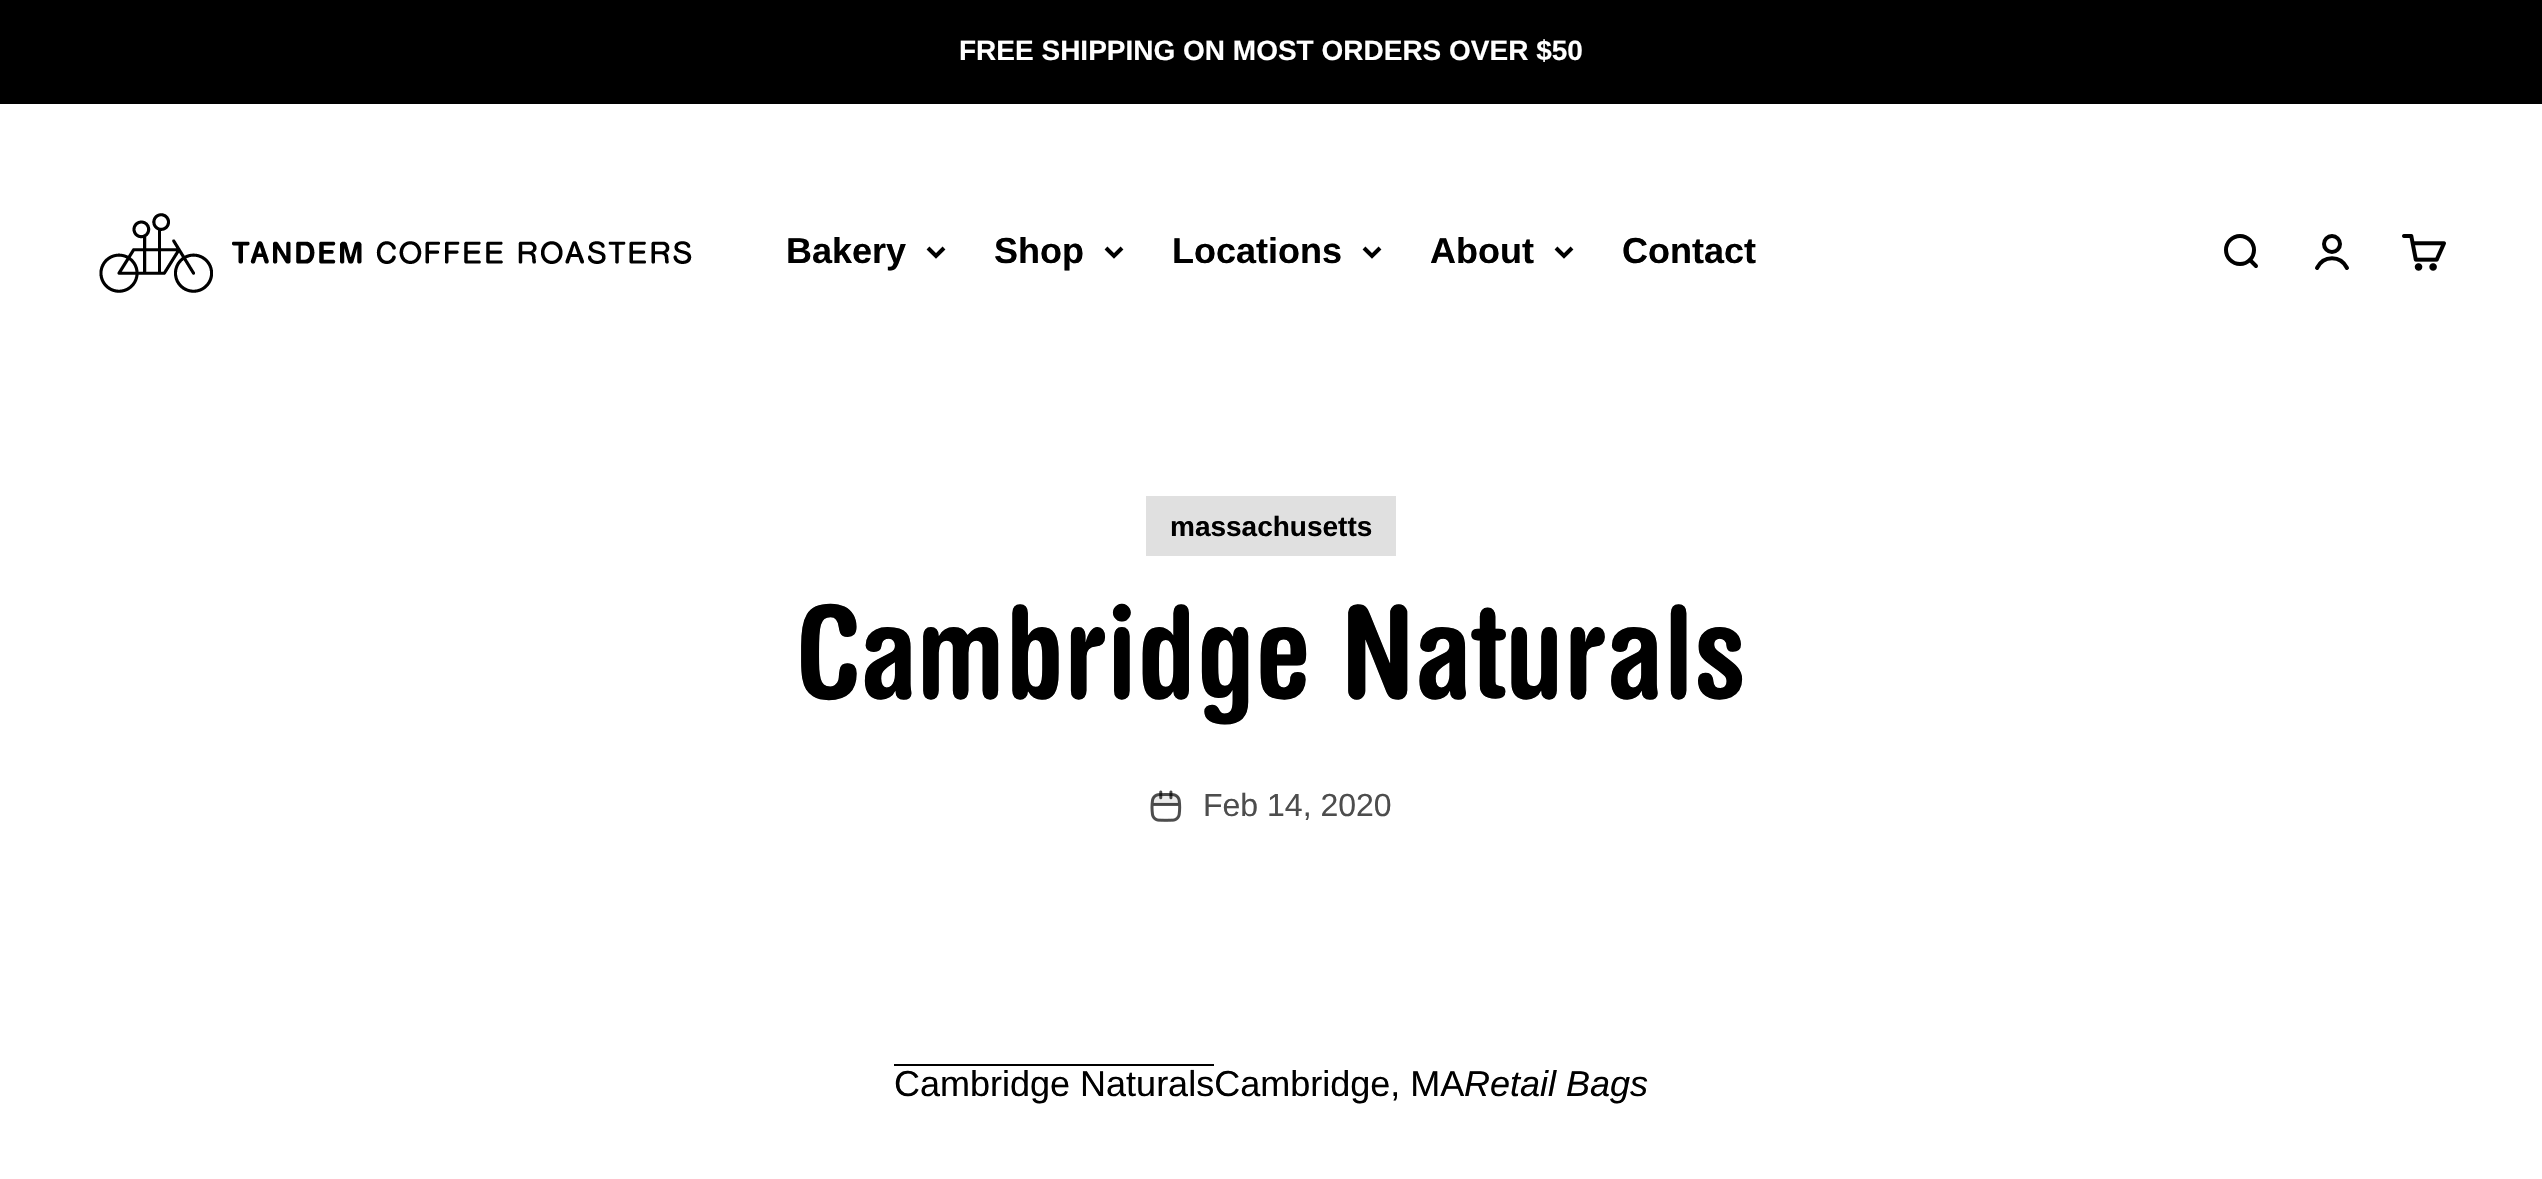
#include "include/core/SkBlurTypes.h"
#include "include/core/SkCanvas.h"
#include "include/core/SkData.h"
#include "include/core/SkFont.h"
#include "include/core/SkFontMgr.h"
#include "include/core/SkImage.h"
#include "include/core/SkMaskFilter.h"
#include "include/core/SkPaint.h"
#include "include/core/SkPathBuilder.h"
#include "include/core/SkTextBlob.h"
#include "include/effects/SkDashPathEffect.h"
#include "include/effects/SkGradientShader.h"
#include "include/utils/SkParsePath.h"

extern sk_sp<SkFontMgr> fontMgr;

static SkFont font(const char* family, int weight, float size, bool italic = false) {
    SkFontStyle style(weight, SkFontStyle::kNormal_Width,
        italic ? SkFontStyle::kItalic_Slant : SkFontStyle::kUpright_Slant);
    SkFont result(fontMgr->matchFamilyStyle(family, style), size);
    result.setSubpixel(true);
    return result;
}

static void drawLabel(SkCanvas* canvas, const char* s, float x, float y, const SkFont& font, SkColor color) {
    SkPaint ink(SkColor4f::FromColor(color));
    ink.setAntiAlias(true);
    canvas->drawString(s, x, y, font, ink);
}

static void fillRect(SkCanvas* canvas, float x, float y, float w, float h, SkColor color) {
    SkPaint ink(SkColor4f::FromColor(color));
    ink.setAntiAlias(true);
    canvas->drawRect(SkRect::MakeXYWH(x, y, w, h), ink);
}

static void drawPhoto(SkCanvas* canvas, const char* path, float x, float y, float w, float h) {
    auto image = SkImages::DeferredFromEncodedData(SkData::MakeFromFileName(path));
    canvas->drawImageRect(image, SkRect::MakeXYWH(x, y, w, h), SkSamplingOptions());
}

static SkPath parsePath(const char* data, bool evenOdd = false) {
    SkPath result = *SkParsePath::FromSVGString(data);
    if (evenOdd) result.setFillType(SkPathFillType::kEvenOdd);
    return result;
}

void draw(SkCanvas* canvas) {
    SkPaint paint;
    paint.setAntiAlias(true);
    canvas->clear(0xFFFFFFFF);
    fillRect(canvas, 0, 0, 2542, 104, 0xFF000000);
    SkFont font1 = font("Liberation Sans", 700, 28);
    drawLabel(canvas, "FREE SHIPPING ON MOST ORDERS OVER $50", 959, 60, font1, 0xFFFFFFFF);
    drawPhoto(canvas, "assets/img1.png", 99, 213, 593, 80);
    SkFont font2 = font("Liberation Sans", 700, 36);
    drawLabel(canvas, "Bakery", 786, 263, font2, 0xFF000000);
    paint.setStroke(true);
    paint.setStrokeWidth(4);
    paint.setColor(0xFF000000);
    canvas->drawPath(parsePath("M928 248L936 256L944 248"), paint);
    drawLabel(canvas, "Shop", 994, 263, font2, 0xFF000000);
    canvas->drawPath(parsePath("M1106 248L1114 256L1122 248"), paint);
    drawLabel(canvas, "Locations", 1172, 263, font2, 0xFF000000);
    canvas->drawPath(parsePath("M1364 248L1372 256L1380 248"), paint);
    drawLabel(canvas, "About", 1430, 263, font2, 0xFF000000);
    canvas->drawPath(parsePath("M1556 248L1564 256L1572 248"), paint);
    drawLabel(canvas, "Contact", 1622, 263, font2, 0xFF000000);
    canvas->drawCircle(2240, 250, 14, paint);
    paint.setStrokeCap(SkPaint::kRound_Cap);
    paint.setStrokeJoin(SkPaint::kRound_Join);
    canvas->drawPath(parsePath("M2250 260L2256 266"), paint);
    paint.setStrokeCap(SkPaint::kButt_Cap);
    paint.setStrokeJoin(SkPaint::kMiter_Join);
    canvas->drawCircle(2332, 244, 8, paint);
    paint.setStrokeCap(SkPaint::kRound_Cap);
    canvas->drawPath(parsePath("M2317 268C2323.5 255 2340.5 255 2347 268"), paint);
    drawPhoto(canvas, "assets/img2.png", 2402, 234, 44, 37);
    fillRect(canvas, 1146, 496, 250, 60, 0xFFE0E0E0);
    drawLabel(canvas, "massachusetts", 1170, 536, font1, 0xFF000000);
    SkFont font3 = font("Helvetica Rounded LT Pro", 700, 128);
    drawLabel(canvas, "Cambridge Naturals", 796, 698, font3, 0xFF000000);
    drawPhoto(canvas, "assets/img3.png", 1150, 790, 32, 32);
    SkFont font4 = font("Liberation Sans", 400, 32);
    drawLabel(canvas, "Feb 14, 2020", 1203, 816, font4, 0xFF4D4D4D);
    SkFont font5 = font("Liberation Sans", 400, 36);
    drawLabel(canvas, "Cambridge NaturalsCambridge, MA", 894, 1096, font5, 0xFF000000);
    fillRect(canvas, 894, 1064, 320, 2, 0xFF000000);
    SkFont font6 = font("Liberation Sans", 400, 36, true);
    drawLabel(canvas, "Retail Bags", 1464, 1096, font6, 0xFF000000);
}
